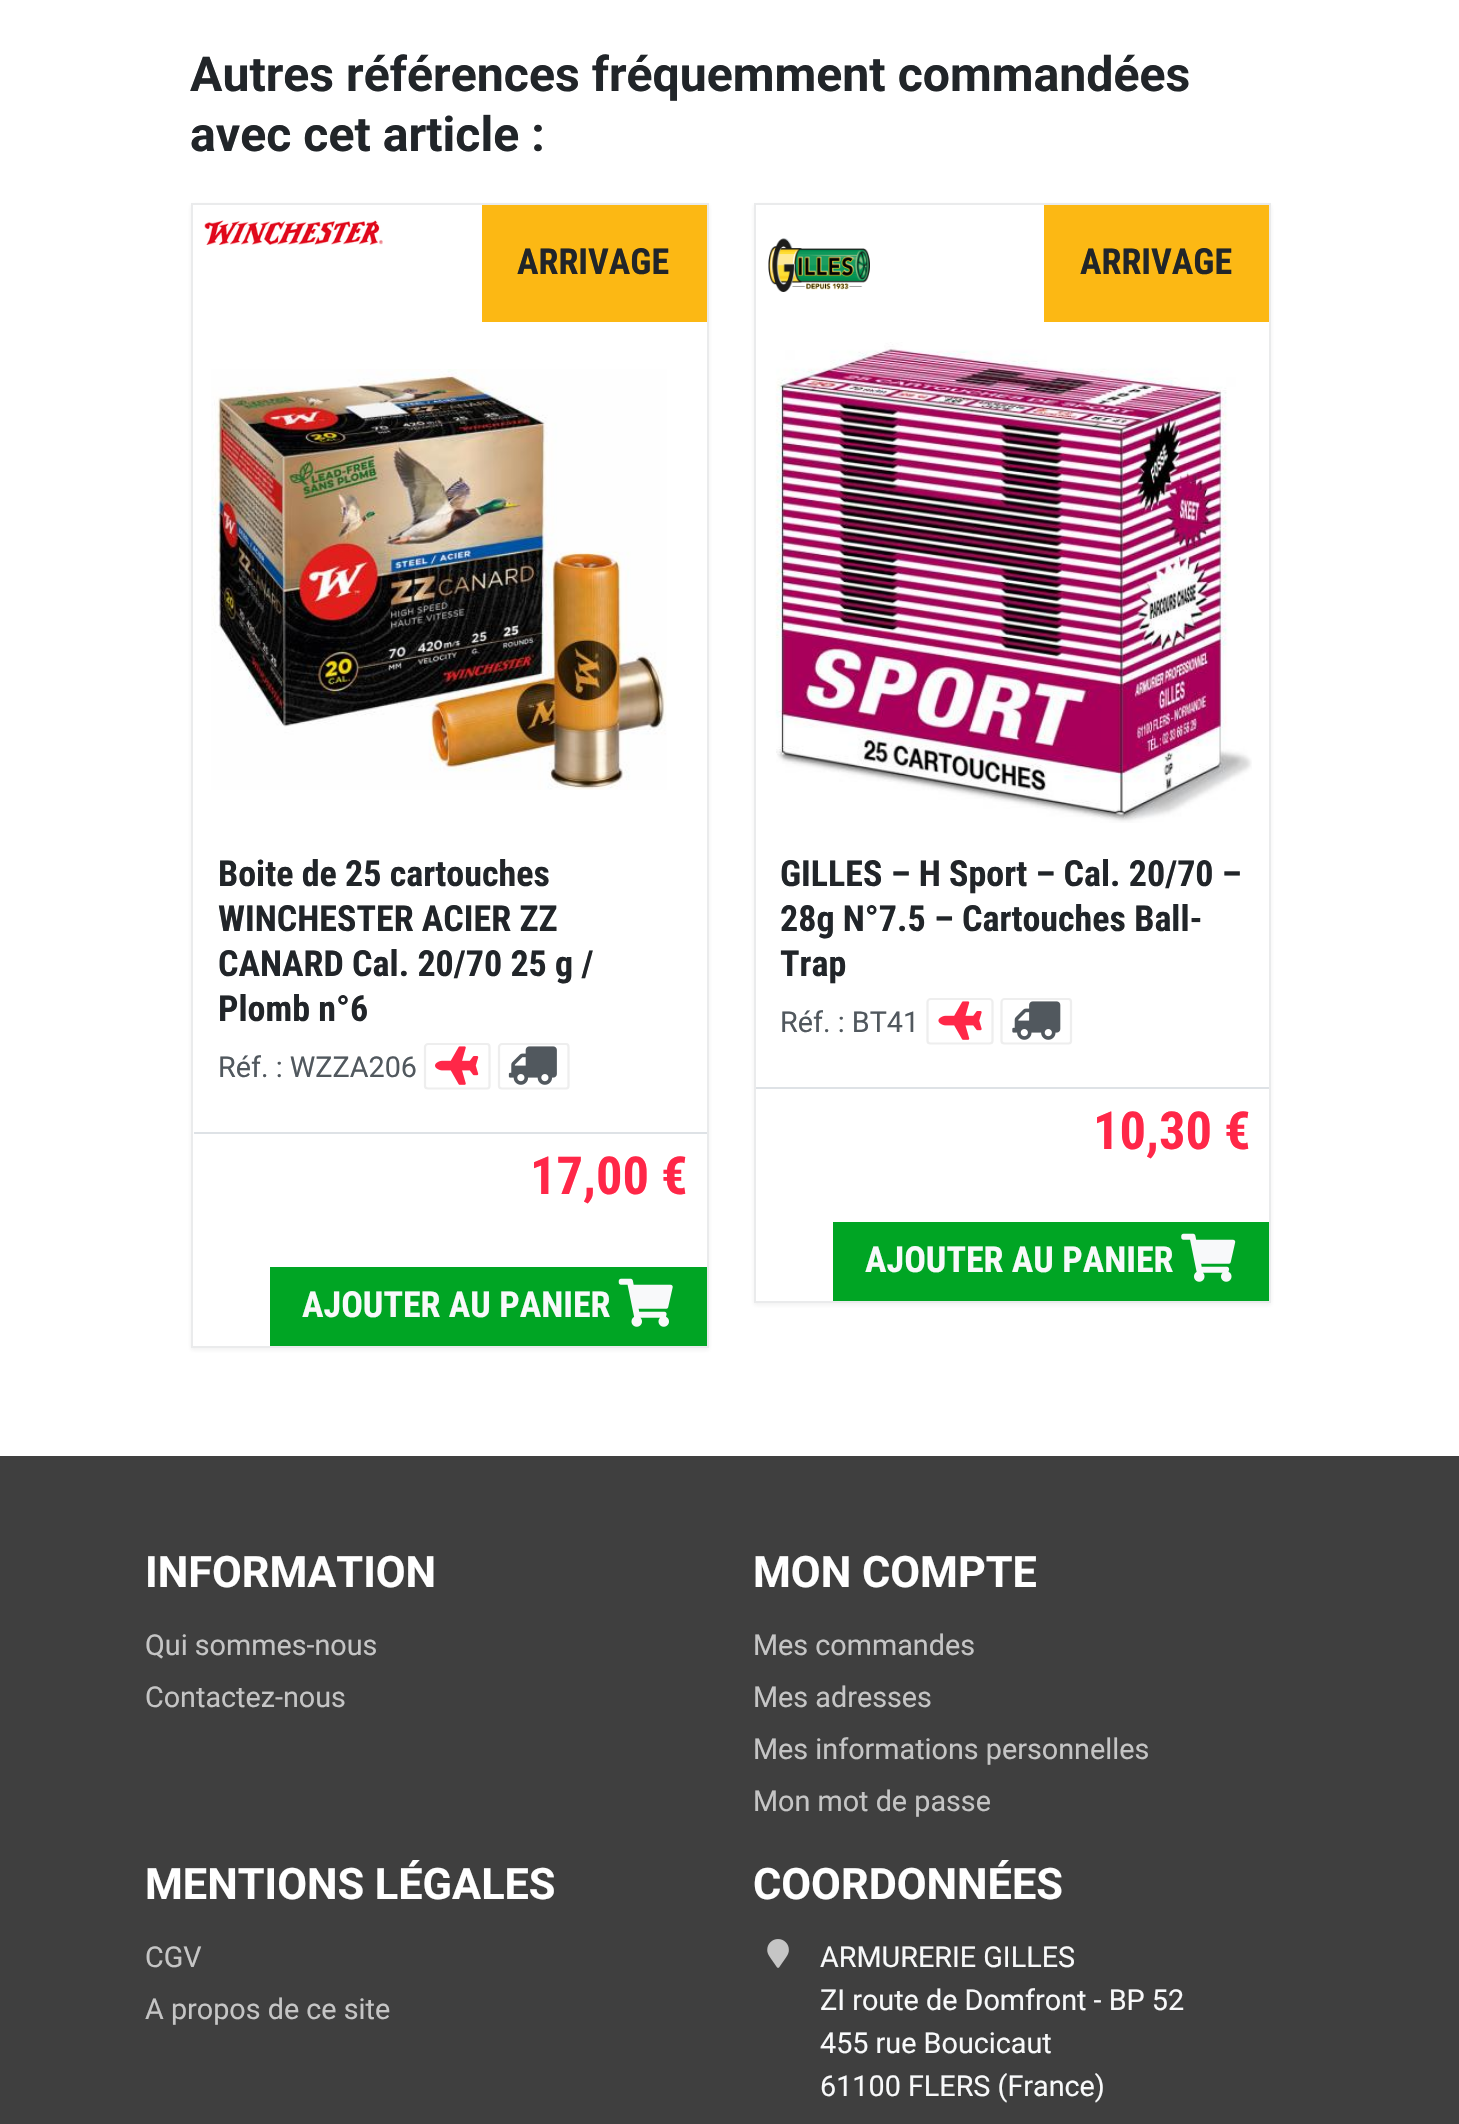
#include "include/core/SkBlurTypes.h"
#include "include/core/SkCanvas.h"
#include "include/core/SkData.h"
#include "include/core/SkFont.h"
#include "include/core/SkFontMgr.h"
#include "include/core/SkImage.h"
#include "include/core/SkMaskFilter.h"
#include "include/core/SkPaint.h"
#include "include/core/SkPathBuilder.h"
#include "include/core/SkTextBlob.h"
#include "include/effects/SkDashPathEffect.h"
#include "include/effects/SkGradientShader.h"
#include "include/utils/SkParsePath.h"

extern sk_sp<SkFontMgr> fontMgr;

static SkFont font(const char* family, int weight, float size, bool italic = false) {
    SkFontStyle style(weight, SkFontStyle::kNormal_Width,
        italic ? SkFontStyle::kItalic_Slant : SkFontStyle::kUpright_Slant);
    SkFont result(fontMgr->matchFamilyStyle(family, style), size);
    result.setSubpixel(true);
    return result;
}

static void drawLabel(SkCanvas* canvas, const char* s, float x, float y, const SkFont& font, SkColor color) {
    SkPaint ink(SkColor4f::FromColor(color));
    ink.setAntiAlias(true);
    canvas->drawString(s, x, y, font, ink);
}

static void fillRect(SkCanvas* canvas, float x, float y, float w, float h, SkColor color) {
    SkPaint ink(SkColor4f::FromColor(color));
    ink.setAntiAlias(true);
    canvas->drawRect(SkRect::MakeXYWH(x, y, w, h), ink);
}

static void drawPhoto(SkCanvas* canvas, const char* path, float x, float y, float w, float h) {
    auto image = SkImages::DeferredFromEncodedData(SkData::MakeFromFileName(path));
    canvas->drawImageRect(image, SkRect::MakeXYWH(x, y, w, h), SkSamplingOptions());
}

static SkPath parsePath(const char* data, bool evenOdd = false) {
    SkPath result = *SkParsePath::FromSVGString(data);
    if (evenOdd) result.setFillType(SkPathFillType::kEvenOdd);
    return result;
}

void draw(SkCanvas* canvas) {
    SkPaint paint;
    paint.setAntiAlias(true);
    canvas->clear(0xFFFFFFFF);
    SkFont font1 = font("Roboto", 700, 48.2f);
    drawLabel(canvas, "Autres références fréquemment commandées", 190, 91, font1, 0xFF212529);
    drawLabel(canvas, "avec cet article :", 190, 151, font1, 0xFF212529);
    paint.setColor(0x12333333);
    paint.setMaskFilter(SkMaskFilter::MakeBlur(kNormal_SkBlurStyle, 2));
    canvas->drawRect(SkRect::MakeXYWH(191, 205, 518, 1145), paint);
    paint.setMaskFilter(nullptr);
    paint.setColor(0xFFFFFFFF);
    canvas->drawRect(SkRect::MakeXYWH(192, 204, 516, 1143), paint);
    paint.setStroke(true);
    paint.setStrokeWidth(2);
    paint.setColor(0xFFEAEBEC);
    canvas->drawRect(SkRect::MakeXYWH(192, 204, 516, 1143), paint);
    drawPhoto(canvas, "assets/img1.png", 204, 220, 179, 25);
    fillRect(canvas, 482, 205, 225, 117, 0xFFFCB814);
    SkFont font2 = font("Roboto Condensed", 700, 36);
    drawLabel(canvas, "ARRIVAGE", 517, 274, font2, 0xFF212529);
    drawPhoto(canvas, "assets/img2.png", 211, 369, 456, 421);
    drawLabel(canvas, "Boite de 25 cartouches", 218, 886, font2, 0xFF212529);
    drawLabel(canvas, "WINCHESTER ACIER ZZ", 218, 931, font2, 0xFF212529);
    drawLabel(canvas, "CANARD Cal. 20/70 25 g /", 218, 976, font2, 0xFF212529);
    drawLabel(canvas, "Plomb n°6", 218, 1021, font2, 0xFF212529);
    SkFont font3 = font("Roboto", 400, 28.75f);
    drawLabel(canvas, "Réf. : WZZA206", 218, 1077, font3, 0xFF51585E);
    paint.setStrokeWidth(2.2f);
    paint.setColor(0xFFEEEEEE);
    canvas->drawPath(parsePath("M487 1044H428C426.5 1044 425 1045.5 425 1047V1086C425 1087.5 426.5 1088.5 428 1088.5H487C488.5 1088.5 489.5 1087.5 489.5 1086V1047C489.5 1045.5 488.5 1044 487 1044Z"), paint);
    drawPhoto(canvas, "assets/img3.png", 435, 1046, 44, 39);
    canvas->drawPath(parsePath("M566 1044H502C500.5 1044 499 1045.5 499 1047V1086C499 1087.5 500.5 1088.5 502 1088.5H566C567.5 1088.5 568.5 1087.5 568.5 1086V1047C568.5 1045.5 567.5 1044 566 1044Z"), paint);
    drawPhoto(canvas, "assets/img4.png", 508, 1046, 49, 39);
    fillRect(canvas, 194, 1132, 513, 2, 0xFFDEE2E6);
    SkFont font4 = font("Roboto Condensed", 700, 52.5f);
    drawLabel(canvas, "17,00 €", 530, 1194, font4, 0xFFFF2748);
    fillRect(canvas, 270, 1267, 437, 79, 0xFF00A524);
    drawLabel(canvas, "AJOUTER AU PANIER", 302, 1317, font2, 0xFFF8F9FA);
    drawPhoto(canvas, "assets/img5.png", 618, 1278, 55, 49);
    paint.setStroke(false);
    paint.setColor(0x12333333);
    paint.setMaskFilter(SkMaskFilter::MakeBlur(kNormal_SkBlurStyle, 2));
    canvas->drawRect(SkRect::MakeXYWH(754, 205, 517, 1100), paint);
    paint.setMaskFilter(nullptr);
    paint.setColor(0xFFFFFFFF);
    canvas->drawRect(SkRect::MakeXYWH(755, 204, 515, 1098), paint);
    paint.setStroke(true);
    paint.setStrokeWidth(2);
    paint.setColor(0xFFEAEBEC);
    canvas->drawRect(SkRect::MakeXYWH(755, 204, 515, 1098), paint);
    drawPhoto(canvas, "assets/img6.png", 768, 238, 102, 54);
    fillRect(canvas, 1044, 205, 225, 117, 0xFFFCB814);
    drawLabel(canvas, "ARRIVAGE", 1080, 274, font2, 0xFF212529);
    drawPhoto(canvas, "assets/img7.png", 775, 342, 477, 481);
    drawLabel(canvas, "GILLES – H Sport – Cal. 20/70 –", 780, 886, font2, 0xFF212529);
    drawLabel(canvas, "28g N°7.5 – Cartouches Ball-", 780, 931, font2, 0xFF212529);
    drawLabel(canvas, "Trap", 780, 976, font2, 0xFF212529);
    drawLabel(canvas, "Réf. : BT41", 780, 1032, font3, 0xFF51585E);
    paint.setStrokeWidth(2.2f);
    paint.setColor(0xFFEEEEEE);
    canvas->drawPath(parsePath("M989.5 999H930.5C929 999 927.5 1000.5 927.5 1002V1041C927.5 1042.5 929 1043.5 930.5 1043.5H989.5C991 1043.5 992.5 1042.5 992.5 1041V1002C992.5 1000.5 991 999 989.5 999Z"), paint);
    drawPhoto(canvas, "assets/img8.png", 938, 1001, 44, 39);
    canvas->drawPath(parsePath("M1068.5 999H1004.5C1003 999 1001.5 1000.5 1001.5 1002V1041C1001.5 1042.5 1003 1043.5 1004.5 1043.5H1068.5C1070 1043.5 1071 1042.5 1071 1041V1002C1071 1000.5 1070 999 1068.5 999Z"), paint);
    drawPhoto(canvas, "assets/img9.png", 1012, 1001, 49, 39);
    fillRect(canvas, 756, 1087, 513, 2, 0xFFDEE2E6);
    drawLabel(canvas, "10,30 €", 1093, 1149, font4, 0xFFFF2748);
    fillRect(canvas, 833, 1222, 436, 79, 0xFF00A524);
    drawLabel(canvas, "AJOUTER AU PANIER", 865, 1272, font2, 0xFFF8F9FA);
    drawPhoto(canvas, "assets/img10.png", 1181, 1233, 55, 49);
    fillRect(canvas, 0, 1456, 1459, 668, 0xFF3F3F3F);
    SkFont font5 = font("Roboto", 700, 43.25f);
    drawLabel(canvas, "INFORMATION", 145, 1587, font5, 0xFFFFFFFF);
    drawLabel(canvas, "Qui sommes-nous", 145, 1655, font3, 0xFFC5C5C5);
    drawLabel(canvas, "Contactez-nous", 145, 1707, font3, 0xFFC5C5C5);
    drawLabel(canvas, "MON COMPTE", 753, 1587, font5, 0xFFFFFFFF);
    drawLabel(canvas, "Mes commandes", 753, 1655, font3, 0xFFC5C5C5);
    drawLabel(canvas, "Mes adresses", 753, 1707, font3, 0xFFC5C5C5);
    drawLabel(canvas, "Mes informations personnelles", 753, 1759, font3, 0xFFC5C5C5);
    drawLabel(canvas, "Mon mot de passe", 753, 1811, font3, 0xFFC5C5C5);
    drawLabel(canvas, "MENTIONS LÉGALES", 145, 1899, font5, 0xFFFFFFFF);
    drawLabel(canvas, "CGV", 145, 1967, font3, 0xFFC5C5C5);
    drawLabel(canvas, "A propos de ce site", 145, 2019, font3, 0xFFC5C5C5);
    drawLabel(canvas, "COORDONNÉES", 753, 1899, font5, 0xFFFFFFFF);
    drawPhoto(canvas, "assets/img11.png", 767, 1939, 22, 29);
    drawLabel(canvas, "ARMURERIE GILLES", 820, 1967, font3, 0xFFF8F9FA);
    drawLabel(canvas, "ZI route de Domfront - BP 52", 820, 2010, font3, 0xFFF8F9FA);
    drawLabel(canvas, "455 rue Boucicaut", 820, 2053, font3, 0xFFF8F9FA);
    drawLabel(canvas, "61100 FLERS (France)", 820, 2096, font3, 0xFFF8F9FA);
}
